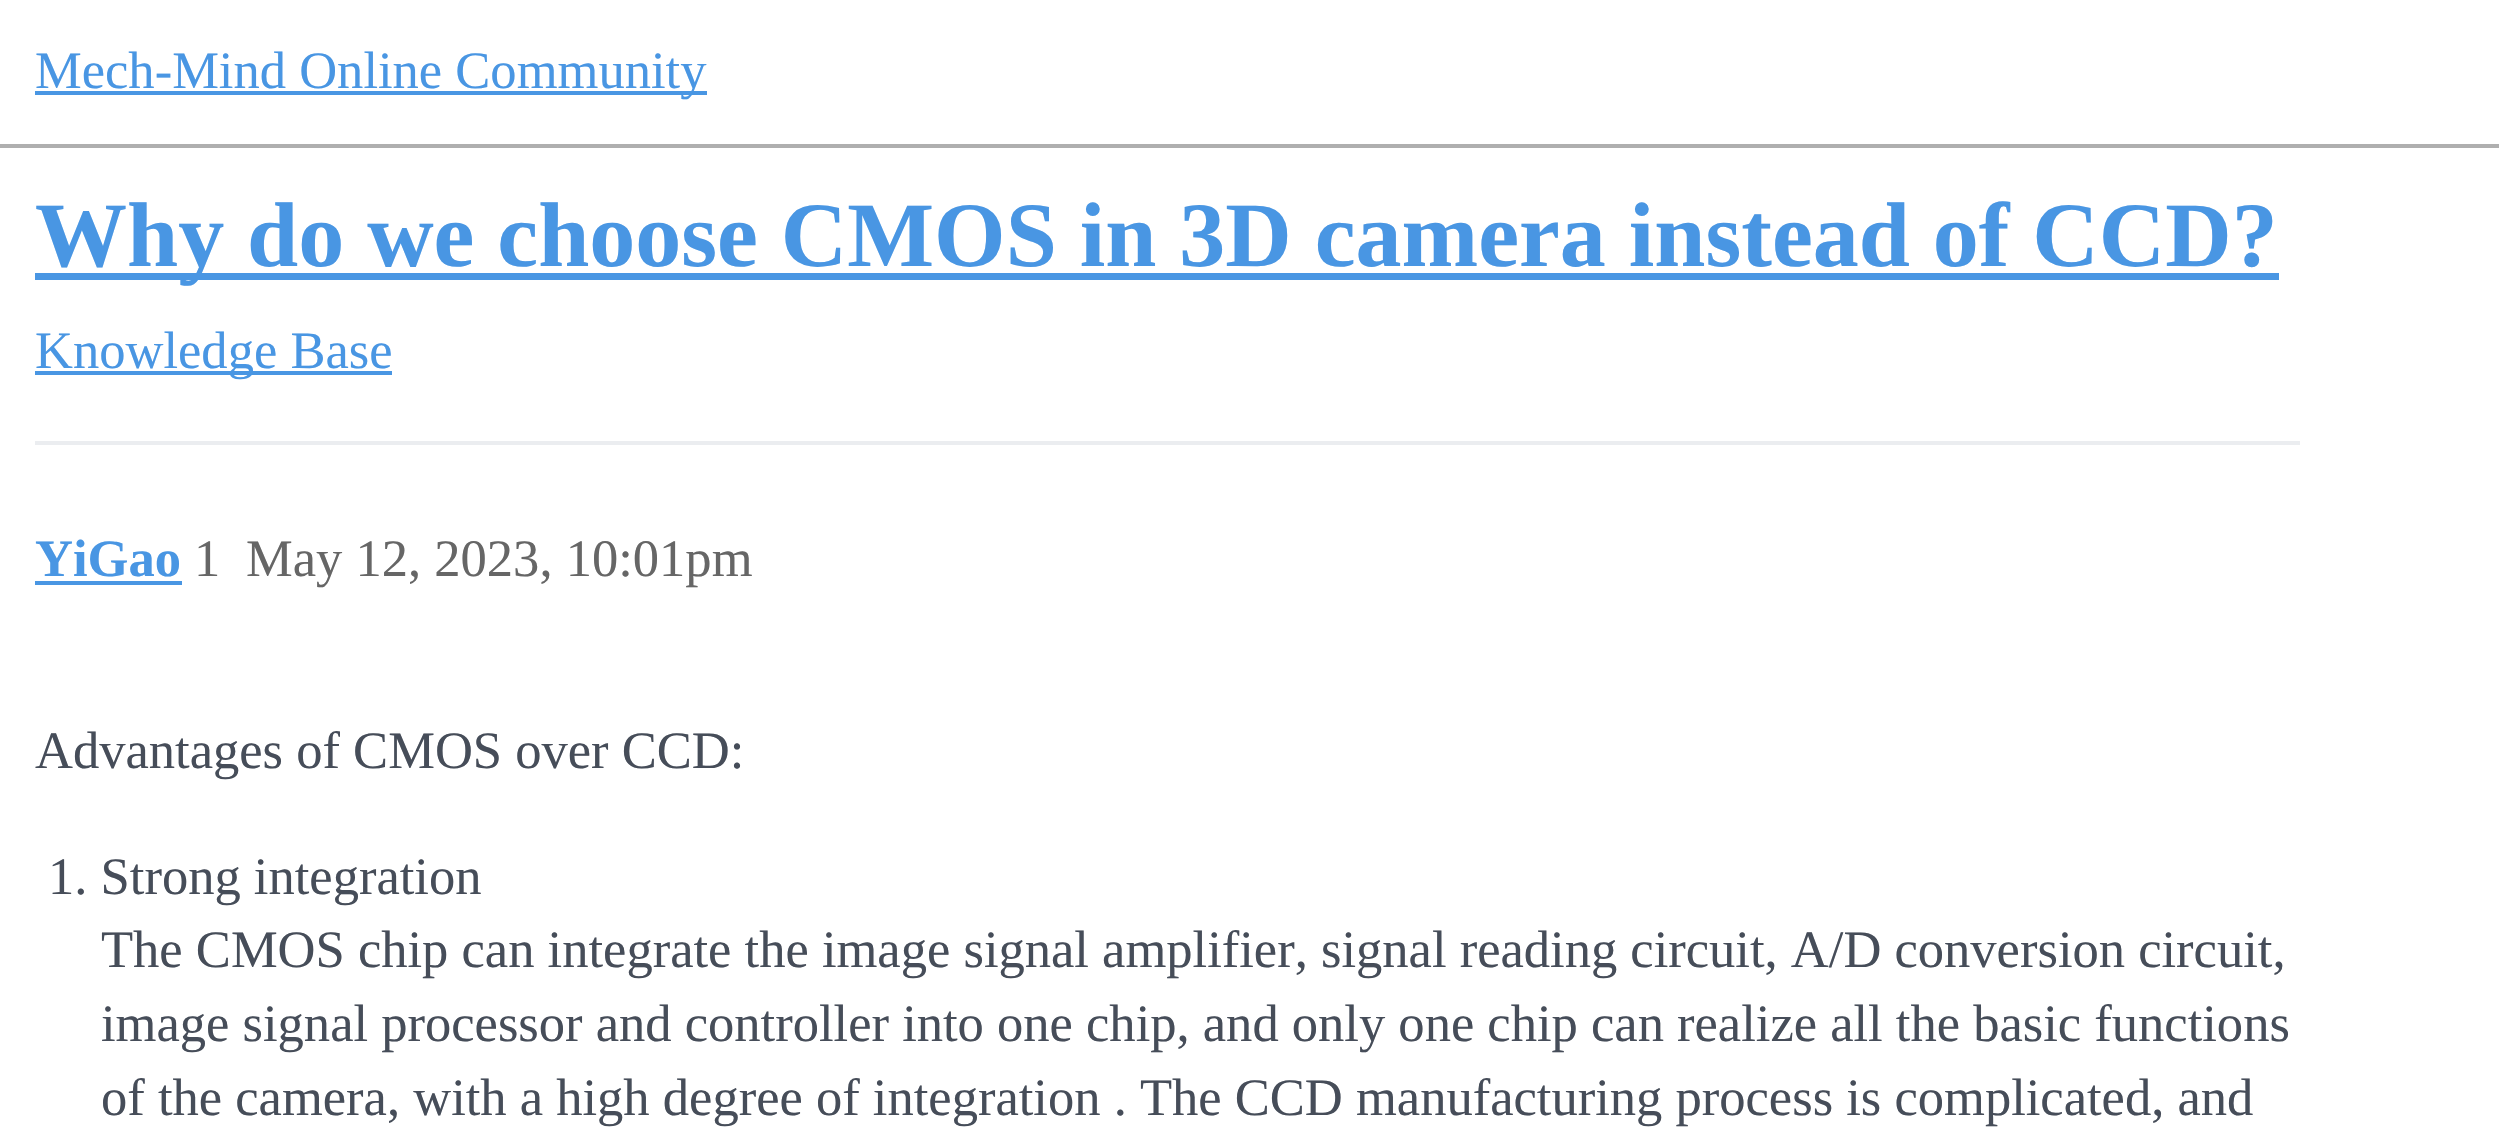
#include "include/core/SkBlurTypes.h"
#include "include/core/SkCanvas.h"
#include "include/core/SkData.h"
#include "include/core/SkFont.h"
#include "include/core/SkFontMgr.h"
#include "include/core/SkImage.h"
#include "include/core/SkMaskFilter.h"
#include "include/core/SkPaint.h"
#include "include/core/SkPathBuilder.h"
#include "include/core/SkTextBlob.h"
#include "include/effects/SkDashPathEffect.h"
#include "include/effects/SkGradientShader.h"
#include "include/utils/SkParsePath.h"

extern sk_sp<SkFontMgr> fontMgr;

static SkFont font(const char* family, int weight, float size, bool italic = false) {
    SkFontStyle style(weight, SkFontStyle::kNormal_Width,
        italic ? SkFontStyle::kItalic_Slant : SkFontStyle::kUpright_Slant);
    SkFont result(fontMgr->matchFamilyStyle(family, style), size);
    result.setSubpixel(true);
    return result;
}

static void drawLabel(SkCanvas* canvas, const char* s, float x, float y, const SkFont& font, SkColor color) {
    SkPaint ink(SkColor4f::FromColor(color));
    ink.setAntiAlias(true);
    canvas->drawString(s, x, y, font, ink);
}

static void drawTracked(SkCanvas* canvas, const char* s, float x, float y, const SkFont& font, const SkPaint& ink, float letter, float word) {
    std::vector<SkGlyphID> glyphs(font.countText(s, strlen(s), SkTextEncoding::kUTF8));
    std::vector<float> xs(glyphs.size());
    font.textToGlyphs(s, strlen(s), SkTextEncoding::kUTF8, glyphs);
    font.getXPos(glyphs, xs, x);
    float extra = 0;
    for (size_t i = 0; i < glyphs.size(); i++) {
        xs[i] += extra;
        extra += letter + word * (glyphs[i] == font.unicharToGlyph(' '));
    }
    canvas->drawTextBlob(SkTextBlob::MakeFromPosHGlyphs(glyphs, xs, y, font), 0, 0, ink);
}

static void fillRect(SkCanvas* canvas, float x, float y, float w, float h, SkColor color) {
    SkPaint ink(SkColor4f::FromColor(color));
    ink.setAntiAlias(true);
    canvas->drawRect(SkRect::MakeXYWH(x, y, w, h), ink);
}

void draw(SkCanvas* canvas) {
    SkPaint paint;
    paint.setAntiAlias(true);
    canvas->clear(0xFFFFFFFF);
    fillRect(canvas, 0, 144, 2499, 4, 0xFFAFAFAF);
    fillRect(canvas, 35, 91, 672, 4, 0xFF4996E3);
    SkFont font1 = font("Liberation Serif", 400, 52.55f);
    drawLabel(canvas, "Mech-Mind Online Community", 35, 88, font1, 0xFF4996E3);
    fillRect(canvas, 35, 273, 2244, 7, 0xFF4996E3);
    SkFont font2 = font("Liberation Serif", 700, 92);
    paint.setColor(0xFF4996E3);
    drawTracked(canvas, "Why do we choose CMOS in 3D camera instead of CCD?", 35, 266, font2, paint, 0, -0.1f);
    fillRect(canvas, 35, 371, 357, 4, 0xFF4996E3);
    drawLabel(canvas, "Knowledge Base", 35, 368, font1, 0xFF4996E3);
    fillRect(canvas, 35, 441, 2265, 4, 0xFFEBEDF0);
    SkFont font3 = font("Liberation Serif", 700, 52.55f);
    drawLabel(canvas, "YiGao", 35, 576, font3, 0xFF4996E3);
    fillRect(canvas, 35, 581, 147, 4, 0xFF4996E3);
    drawLabel(canvas, "1", 194, 576, font1, 0xFF666666);
    drawLabel(canvas, "May 12, 2023, 10:01pm", 246, 576, font1, 0xFF666666);
    drawLabel(canvas, "Advantages of CMOS over CCD:", 35, 768, font1, 0xFF464D59);
    drawLabel(canvas, "1. Strong integration", 48, 894, font1, 0xFF464D59);
    drawLabel(canvas, "The CMOS chip can integrate the image signal amplifier, signal reading circuit, A/D conversion circuit,", 101, 967, font1, 0xFF464D59);
    drawLabel(canvas, "image signal processor and controller into one chip, and only one chip can realize all the basic functions", 101, 1041, font1, 0xFF464D59);
    drawLabel(canvas, "of the camera, with a high degree of integration . The CCD manufacturing process is complicated, and", 101, 1115, font1, 0xFF464D59);
}
